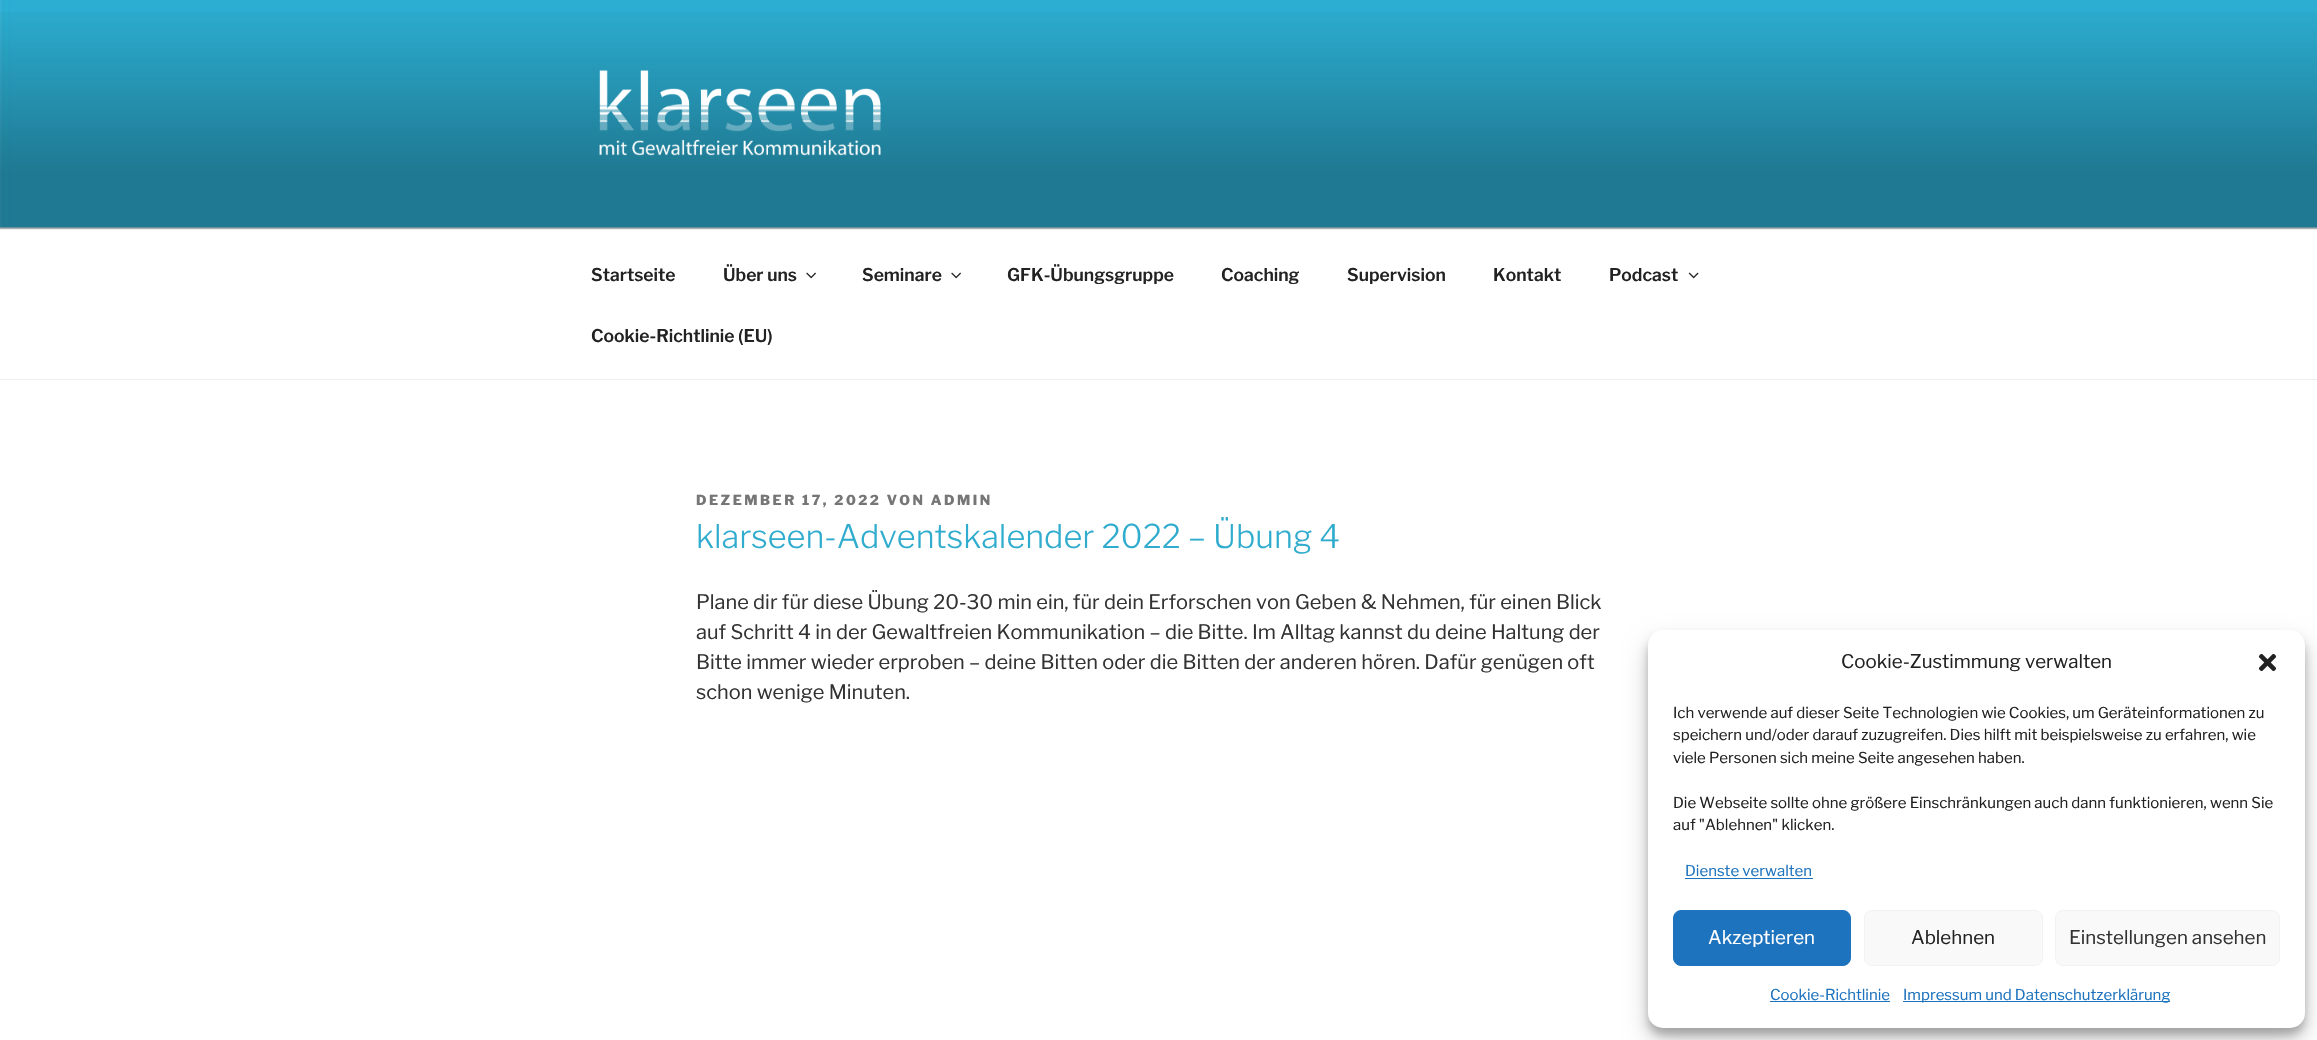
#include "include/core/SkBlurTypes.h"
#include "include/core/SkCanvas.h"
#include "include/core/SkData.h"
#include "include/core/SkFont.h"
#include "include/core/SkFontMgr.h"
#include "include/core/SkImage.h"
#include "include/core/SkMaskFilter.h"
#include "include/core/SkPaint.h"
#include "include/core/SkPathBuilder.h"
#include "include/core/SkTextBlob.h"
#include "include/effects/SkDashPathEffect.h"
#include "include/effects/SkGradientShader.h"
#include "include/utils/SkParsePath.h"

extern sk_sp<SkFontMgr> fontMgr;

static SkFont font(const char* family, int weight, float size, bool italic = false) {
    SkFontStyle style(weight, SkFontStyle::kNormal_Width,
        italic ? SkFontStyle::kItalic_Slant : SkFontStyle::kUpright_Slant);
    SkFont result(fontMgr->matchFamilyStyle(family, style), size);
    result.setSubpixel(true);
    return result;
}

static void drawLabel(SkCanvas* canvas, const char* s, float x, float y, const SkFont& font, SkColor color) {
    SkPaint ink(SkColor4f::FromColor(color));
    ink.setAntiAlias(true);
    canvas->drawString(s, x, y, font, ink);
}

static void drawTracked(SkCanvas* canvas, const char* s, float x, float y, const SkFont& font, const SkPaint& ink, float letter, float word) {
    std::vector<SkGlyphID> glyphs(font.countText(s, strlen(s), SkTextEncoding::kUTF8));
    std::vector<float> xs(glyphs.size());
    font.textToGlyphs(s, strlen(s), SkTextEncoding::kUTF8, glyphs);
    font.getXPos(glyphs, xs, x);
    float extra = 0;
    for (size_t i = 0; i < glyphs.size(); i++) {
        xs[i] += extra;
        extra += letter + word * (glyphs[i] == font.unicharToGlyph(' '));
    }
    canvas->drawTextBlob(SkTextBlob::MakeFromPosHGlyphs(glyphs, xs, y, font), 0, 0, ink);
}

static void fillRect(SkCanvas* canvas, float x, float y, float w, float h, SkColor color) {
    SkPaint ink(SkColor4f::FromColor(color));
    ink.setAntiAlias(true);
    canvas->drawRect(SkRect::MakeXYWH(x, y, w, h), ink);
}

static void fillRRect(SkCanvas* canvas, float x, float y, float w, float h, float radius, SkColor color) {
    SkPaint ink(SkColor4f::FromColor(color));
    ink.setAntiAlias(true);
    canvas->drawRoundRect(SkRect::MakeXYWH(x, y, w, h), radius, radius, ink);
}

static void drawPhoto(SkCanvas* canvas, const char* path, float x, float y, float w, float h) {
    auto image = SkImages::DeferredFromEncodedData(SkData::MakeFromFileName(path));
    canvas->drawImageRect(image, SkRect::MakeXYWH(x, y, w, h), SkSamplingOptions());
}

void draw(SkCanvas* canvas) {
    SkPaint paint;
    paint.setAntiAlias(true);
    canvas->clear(0xFFFFFFFF);
    fillRect(canvas, 0, 227, 2317, 2, 0xFFFAFAFA);
    drawPhoto(canvas, "assets/img1.png", 0, 0, 2317, 228);
    {
        const SkColor colors[] = {0x00000000, 0x4D000000, 0x4D000000};
        const float stops[] = {0, 0.75f, 1};
        const SkPoint ends[] = {{1159, 0}, {1159, 229}};
        paint.setShader(SkGradientShader::MakeLinear(ends, colors, stops, 3, SkTileMode::kClamp));
        paint.setAlpha(255);
    }
    canvas->drawRect(SkRect::MakeXYWH(0, 12, 2317, 217), paint);
    drawPhoto(canvas, "assets/img2.png", 599, 70, 282, 86);
    fillRect(canvas, 0, 229, 2317, 1, 0xFFEEEEEE);
    fillRect(canvas, 0, 379, 2317, 1, 0xFFEEEEEE);
    SkFont font1 = font("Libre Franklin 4", 100, 17.5f);
    drawLabel(canvas, "Startseite", 591, 281, font1, 0xFF222222);
    drawLabel(canvas, "Über uns", 723, 281, font1, 0xFF222222);
    drawPhoto(canvas, "assets/img3.png", 806, 272, 10, 7);
    drawLabel(canvas, "Seminare", 862, 281, font1, 0xFF222222);
    drawPhoto(canvas, "assets/img3.png", 951, 272, 10, 7);
    drawLabel(canvas, "GFK-Übungsgruppe", 1007, 281, font1, 0xFF222222);
    drawLabel(canvas, "Coaching", 1221, 281, font1, 0xFF222222);
    drawLabel(canvas, "Supervision", 1347, 281, font1, 0xFF222222);
    drawLabel(canvas, "Kontakt", 1493, 281, font1, 0xFF222222);
    drawLabel(canvas, "Podcast", 1609, 281, font1, 0xFF222222);
    drawPhoto(canvas, "assets/img4.png", 1688, 272, 11, 7);
    drawLabel(canvas, "Cookie-Richtlinie (EU)", 591, 342, font1, 0xFF222222);
    SkFont font2 = font("Libre Franklin", 100, 13.75f);
    paint.setShader(nullptr);
    paint.setColor(0xFF767676);
    drawTracked(canvas, "DEZEMBER 17, 2022 VON ADMIN", 696, 505, font2, paint, 2.5f, 0);
    SkFont font3 = font("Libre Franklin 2", 100, 32.5f);
    drawLabel(canvas, "klarseen-Adventskalender 2022 – Übung 4", 696, 548, font3, 0xFF30ACCE);
    SkFont font4 = font("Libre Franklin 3", 100, 20);
    drawLabel(canvas, "Plane dir für diese Übung 20-30 min ein, für dein Erforschen von Geben & Nehmen, für einen Blick", 696, 609, font4, 0xFF333333);
    drawLabel(canvas, "auf Schritt 4 in der Gewaltfreien Kommunikation – die Bitte. Im Alltag kannst du deine Haltung der", 696, 639, font4, 0xFF333333);
    drawLabel(canvas, "Bitte immer wieder erproben – deine Bitten oder die Bitten der anderen hören. Dafür genügen oft", 696, 669, font4, 0xFF333333);
    drawLabel(canvas, "schon wenige Minuten.", 696, 699, font4, 0xFF333333);
    paint.setColor(0x3B000000);
    paint.setMaskFilter(SkMaskFilter::MakeBlur(kNormal_SkBlurStyle, 4));
    canvas->drawRoundRect(SkRect::MakeXYWH(1648, 638, 657, 397), 15, 15, paint);
    paint.setMaskFilter(nullptr);
    paint.setColor(0x30000000);
    paint.setMaskFilter(SkMaskFilter::MakeBlur(kNormal_SkBlurStyle, 12.5f));
    canvas->drawRoundRect(SkRect::MakeXYWH(1648, 643, 657, 397), 15, 15, paint);
    paint.setMaskFilter(nullptr);
    fillRRect(canvas, 1648, 630, 657, 398, 15, 0xFFFFFFFF);
    SkFont font5 = font("Libre Franklin 3", 100, 18.75f);
    drawLabel(canvas, "Cookie-Zustimmung verwalten", 1841, 668, font5, 0xFF222222);
    drawPhoto(canvas, "assets/img5.png", 2258, 653, 19, 19);
    SkFont font6 = font("Libre Franklin 3", 100, 15);
    drawLabel(canvas, "Ich verwende auf dieser Seite Technologien wie Cookies, um Geräteinformationen zu", 1673, 718, font6, 0xFF222222);
    drawLabel(canvas, "speichern und/oder darauf zuzugreifen. Dies hilft mit beispielsweise zu erfahren, wie", 1673, 740, font6, 0xFF222222);
    drawLabel(canvas, "viele Personen sich meine Seite angesehen haben.", 1673, 763, font6, 0xFF222222);
    drawLabel(canvas, "Die Webseite sollte ohne größere Einschränkungen auch dann funktionieren, wenn Sie", 1673, 808, font6, 0xFF222222);
    drawLabel(canvas, "auf \"Ablehnen\" klicken.", 1673, 830, font6, 0xFF222222);
    drawLabel(canvas, "Dienste verwalten", 1685, 876, font6, 0xFF1E73BE);
    fillRect(canvas, 1685, 878, 128, 1, 0xFF1E73BE);
    paint.setColor(0xFF1E73BE);
    canvas->drawRoundRect(SkRect::MakeXYWH(1673.5f, 910.5f, 177, 55), 7.5f, 7.5f, paint);
    paint.setStroke(true);
    paint.setStrokeWidth(1);
    canvas->drawRoundRect(SkRect::MakeXYWH(1673.5f, 910.5f, 177, 55), 7.5f, 7.5f, paint);
    drawLabel(canvas, "Akzeptieren", 1708, 944, font5, 0xFFFFFFFF);
    paint.setStroke(false);
    paint.setColor(0xFFF9F9F9);
    canvas->drawRoundRect(SkRect::MakeXYWH(1864.5f, 910.5f, 178, 55), 7.5f, 7.5f, paint);
    paint.setStroke(true);
    paint.setColor(0xFFF2F2F2);
    canvas->drawRoundRect(SkRect::MakeXYWH(1864.5f, 910.5f, 178, 55), 7.5f, 7.5f, paint);
    drawLabel(canvas, "Ablehnen", 1911, 944, font5, 0xFF222222);
    paint.setStroke(false);
    paint.setColor(0xFFF9F9F9);
    canvas->drawRoundRect(SkRect::MakeXYWH(2055.5f, 910.5f, 224, 55), 7.5f, 7.5f, paint);
    paint.setStroke(true);
    paint.setColor(0xFFF2F2F2);
    canvas->drawRoundRect(SkRect::MakeXYWH(2055.5f, 910.5f, 224, 55), 7.5f, 7.5f, paint);
    drawLabel(canvas, "Einstellungen ansehen", 2069, 944, font5, 0xFF333333);
    drawLabel(canvas, "Cookie-Richtlinie", 1770, 1000, font6, 0xFF1E73BE);
    fillRect(canvas, 1770, 1001, 120, 1, 0xFF1E73BE);
    fillRect(canvas, 1903, 1001, 267, 1, 0xFF1E73BE);
    drawLabel(canvas, "Impressum und Datenschutzerklärung", 1903, 1000, font6, 0xFF1E73BE);
}
